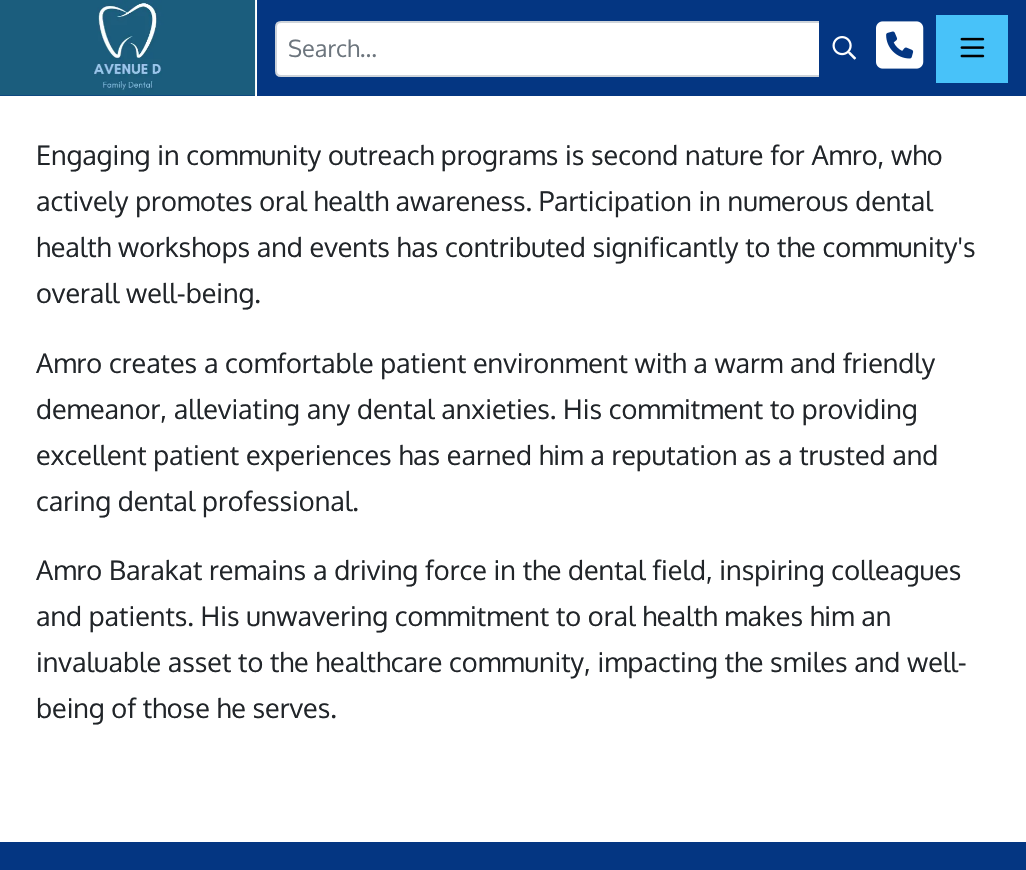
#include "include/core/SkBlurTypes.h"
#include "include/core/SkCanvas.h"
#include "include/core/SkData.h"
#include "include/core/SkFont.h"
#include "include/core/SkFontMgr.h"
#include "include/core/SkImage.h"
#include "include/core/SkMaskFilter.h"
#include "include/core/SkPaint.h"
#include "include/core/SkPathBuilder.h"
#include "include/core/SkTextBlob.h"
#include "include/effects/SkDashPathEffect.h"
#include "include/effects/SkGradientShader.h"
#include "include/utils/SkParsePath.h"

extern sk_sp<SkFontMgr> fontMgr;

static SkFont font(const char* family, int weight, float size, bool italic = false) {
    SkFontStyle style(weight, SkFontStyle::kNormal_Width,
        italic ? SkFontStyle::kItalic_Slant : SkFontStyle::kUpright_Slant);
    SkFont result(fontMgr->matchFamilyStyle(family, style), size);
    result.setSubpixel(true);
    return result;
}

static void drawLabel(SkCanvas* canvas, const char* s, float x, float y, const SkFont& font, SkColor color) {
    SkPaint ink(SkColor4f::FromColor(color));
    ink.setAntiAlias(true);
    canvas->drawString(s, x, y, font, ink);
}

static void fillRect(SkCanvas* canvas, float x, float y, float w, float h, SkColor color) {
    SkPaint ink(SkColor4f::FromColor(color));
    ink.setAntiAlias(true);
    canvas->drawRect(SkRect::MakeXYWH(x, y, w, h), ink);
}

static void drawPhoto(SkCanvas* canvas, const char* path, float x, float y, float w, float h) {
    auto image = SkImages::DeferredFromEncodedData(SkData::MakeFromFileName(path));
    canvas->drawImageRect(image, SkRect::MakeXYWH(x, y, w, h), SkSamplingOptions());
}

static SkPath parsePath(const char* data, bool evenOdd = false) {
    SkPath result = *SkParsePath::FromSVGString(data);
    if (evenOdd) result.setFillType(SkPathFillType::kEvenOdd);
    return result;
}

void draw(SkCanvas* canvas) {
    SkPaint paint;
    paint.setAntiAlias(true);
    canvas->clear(0xFFFFFFFF);
    fillRect(canvas, 0, 0, 1026, 96, 0xFF043682);
    fillRect(canvas, 255, 0, 2, 98, 0xFFFFFFFF);
    drawPhoto(canvas, "assets/img1.png", 0, 0, 256, 96);
    paint.setColor(0xFFFFFFFF);
    canvas->drawPath(parsePath("M281 22H820V76H281C278 76 276 74 276 71V27C276 24 278 22 281 22Z"), paint);
    paint.setStroke(true);
    paint.setStrokeWidth(2);
    paint.setColor(0xFFCED4DA);
    canvas->drawPath(parsePath("M281 22H820V76H281C278 76 276 74 276 71V27C276 24 278 22 281 22Z"), paint);
    SkFont font1 = font("Oxygen", 400, 23.5f);
    drawLabel(canvas, "Search...", 288, 57, font1, 0xFF6C757D);
    fillRect(canvas, 819, 21, 2, 56, 0xFF043682);
    drawPhoto(canvas, "assets/img2.png", 832, 36, 25, 24);
    drawPhoto(canvas, "assets/img3.png", 876, 21, 48, 48);
    fillRect(canvas, 936, 15, 72, 68, 0xFF48C2F9);
    drawPhoto(canvas, "assets/img4.png", 960, 37, 25, 21);
    SkFont font2 = font("Oxygen", 400, 27);
    drawLabel(canvas, "Engaging in community outreach programs is second nature for Amro, who", 36, 165, font2, 0xFF212529);
    drawLabel(canvas, "actively promotes oral health awareness. Participation in numerous dental", 36, 211, font2, 0xFF212529);
    drawLabel(canvas, "health workshops and events has contributed significantly to the community's", 36, 257, font2, 0xFF212529);
    drawLabel(canvas, "overall well-being.", 36, 303, font2, 0xFF212529);
    drawLabel(canvas, "Amro creates a comfortable patient environment with a warm and friendly", 36, 373, font2, 0xFF212529);
    drawLabel(canvas, "demeanor, alleviating any dental anxieties. His commitment to providing", 36, 419, font2, 0xFF212529);
    drawLabel(canvas, "excellent patient experiences has earned him a reputation as a trusted and", 36, 465, font2, 0xFF212529);
    drawLabel(canvas, "caring dental professional.", 36, 511, font2, 0xFF212529);
    drawLabel(canvas, "Amro Barakat remains a driving force in the dental field, inspiring colleagues", 36, 580, font2, 0xFF212529);
    drawLabel(canvas, "and patients. His unwavering commitment to oral health makes him an", 36, 626, font2, 0xFF212529);
    drawLabel(canvas, "invaluable asset to the healthcare community, impacting the smiles and well-", 36, 672, font2, 0xFF212529);
    drawLabel(canvas, "being of those he serves.", 36, 718, font2, 0xFF212529);
    fillRect(canvas, 0, 842, 1026, 28, 0xFF043682);
}
